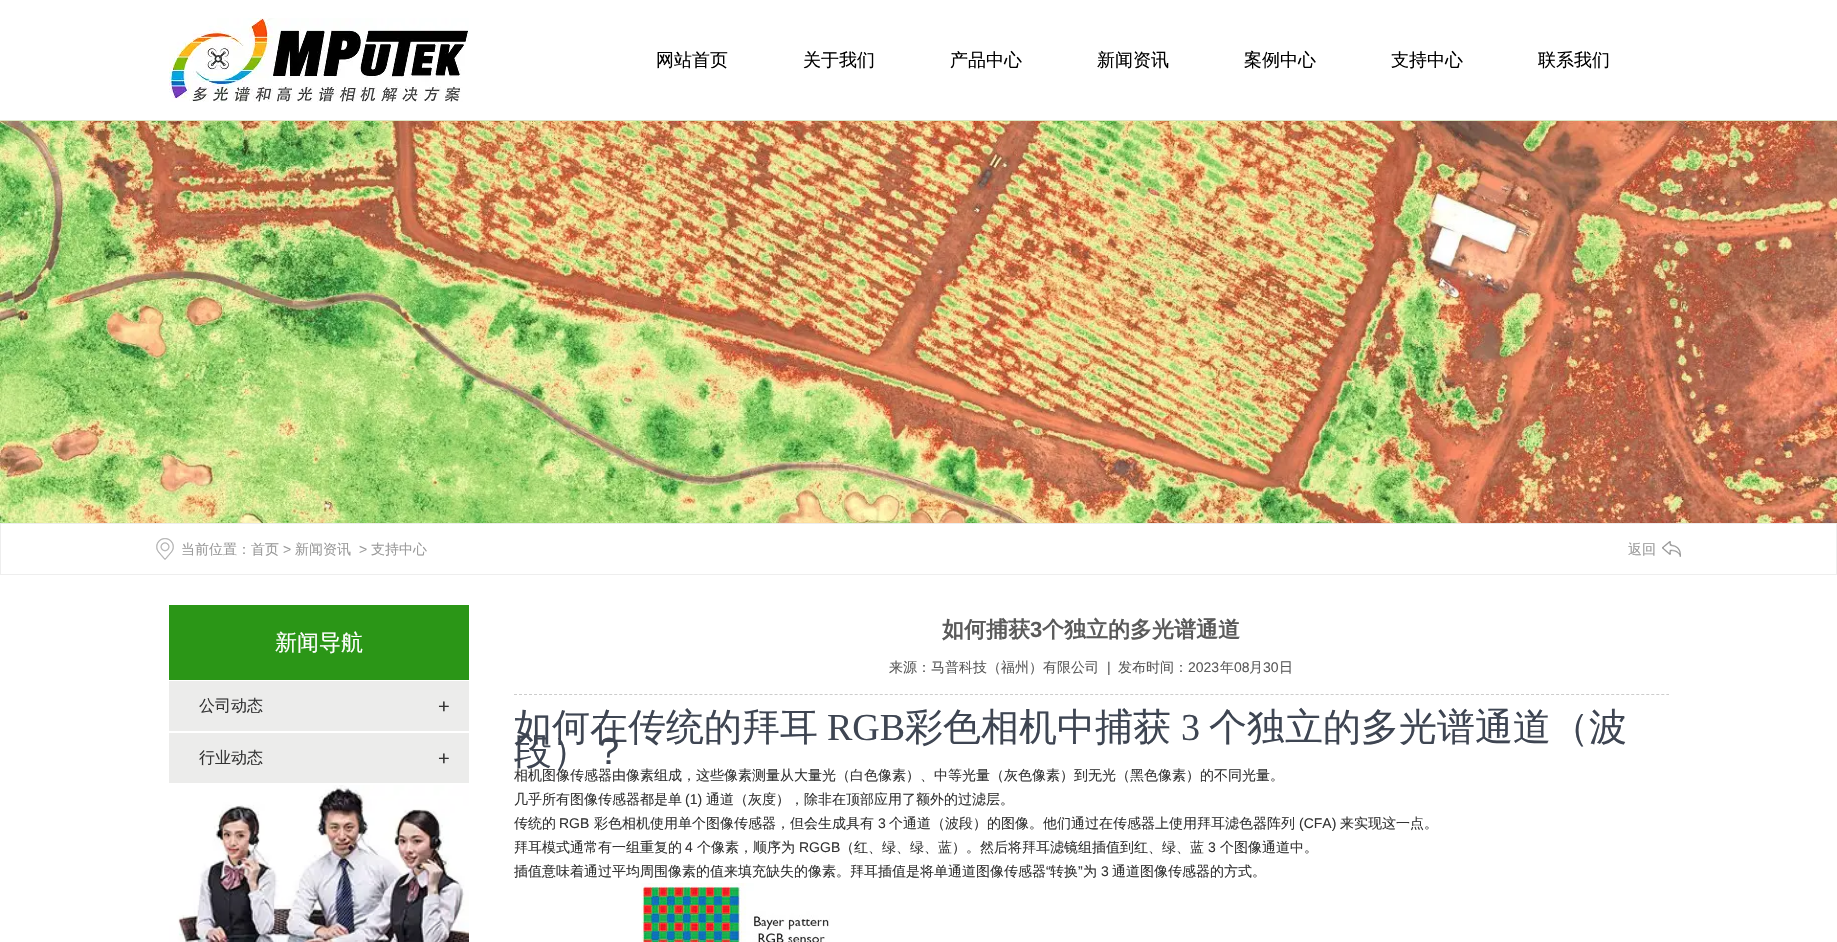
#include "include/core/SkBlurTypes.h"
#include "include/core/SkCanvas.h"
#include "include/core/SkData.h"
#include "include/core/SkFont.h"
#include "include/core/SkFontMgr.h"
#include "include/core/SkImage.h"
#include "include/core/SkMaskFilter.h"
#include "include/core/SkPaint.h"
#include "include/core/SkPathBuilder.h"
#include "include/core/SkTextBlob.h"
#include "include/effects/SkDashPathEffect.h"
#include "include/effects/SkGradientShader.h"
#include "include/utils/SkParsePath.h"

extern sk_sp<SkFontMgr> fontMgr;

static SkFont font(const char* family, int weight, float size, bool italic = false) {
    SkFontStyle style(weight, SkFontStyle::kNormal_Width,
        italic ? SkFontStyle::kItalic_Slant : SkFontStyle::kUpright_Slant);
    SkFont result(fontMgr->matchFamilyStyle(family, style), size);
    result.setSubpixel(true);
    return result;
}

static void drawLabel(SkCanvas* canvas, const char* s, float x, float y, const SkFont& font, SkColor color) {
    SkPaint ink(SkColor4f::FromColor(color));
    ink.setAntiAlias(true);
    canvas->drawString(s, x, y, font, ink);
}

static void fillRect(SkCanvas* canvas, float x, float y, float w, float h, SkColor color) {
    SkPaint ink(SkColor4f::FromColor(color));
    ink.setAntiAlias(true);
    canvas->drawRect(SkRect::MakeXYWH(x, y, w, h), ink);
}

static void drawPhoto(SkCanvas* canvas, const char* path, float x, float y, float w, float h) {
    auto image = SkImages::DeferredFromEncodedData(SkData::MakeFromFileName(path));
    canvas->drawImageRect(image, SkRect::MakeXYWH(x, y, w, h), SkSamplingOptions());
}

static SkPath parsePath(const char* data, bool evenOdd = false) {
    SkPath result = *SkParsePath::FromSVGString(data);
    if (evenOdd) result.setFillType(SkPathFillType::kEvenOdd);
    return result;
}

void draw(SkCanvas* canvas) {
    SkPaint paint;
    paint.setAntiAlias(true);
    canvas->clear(0xFFFFFFFF);
    fillRect(canvas, 0, 120, 1837, 1, 0xFFDDE6C5);
    drawPhoto(canvas, "assets/img1.png", 169, 18, 300, 84);
    SkFont font1 = font("WenQuanYi Zen Hei", 500, 18);
    drawLabel(canvas, "网站首页", 656, 66, font1, 0xFF000000);
    drawLabel(canvas, "关于我们", 803, 66, font1, 0xFF000000);
    drawLabel(canvas, "产品中心", 950, 66, font1, 0xFF000000);
    drawLabel(canvas, "新闻资讯", 1097, 66, font1, 0xFF000000);
    drawLabel(canvas, "案例中心", 1244, 66, font1, 0xFF000000);
    drawLabel(canvas, "支持中心", 1391, 66, font1, 0xFF000000);
    drawLabel(canvas, "联系我们", 1538, 66, font1, 0xFF000000);
    drawPhoto(canvas, "assets/img2.png", 0, 121, 1837, 402);
    paint.setStroke(true);
    paint.setStrokeWidth(1);
    paint.setColor(0xFFEEEEEE);
    canvas->drawRect(SkRect::MakeXYWH(0.5f, 523.5f, 1836, 51), paint);
    drawPhoto(canvas, "assets/img3.png", 156, 538, 18, 22);
    SkFont font2 = font("WenQuanYi Zen Hei", 500, 14);
    drawLabel(canvas, "当前位置：首页", 181, 554, font2, 0xFF999999);
    SkFont font3 = font("Liberation Sans", 400, 14);
    drawLabel(canvas, ">", 283, 554, font3, 0xFF999999);
    drawLabel(canvas, "新闻资讯", 295, 554, font2, 0xFF999999);
    drawLabel(canvas, ">", 359, 554, font3, 0xFF999999);
    drawLabel(canvas, "支持中心", 371, 554, font2, 0xFF999999);
    drawPhoto(canvas, "assets/img4.png", 1662, 541, 19, 16);
    drawLabel(canvas, "返回", 1628, 554, font2, 0xFF999999);
    fillRect(canvas, 169, 605, 300, 75, 0xFF2B9617);
    SkFont font4 = font("WenQuanYi Zen Hei", 500, 22);
    drawLabel(canvas, "新闻导航", 275, 650, font4, 0xFFFFFFFF);
    fillRect(canvas, 169, 681, 300, 50, 0xFFECECEB);
    SkFont font5 = font("WenQuanYi Zen Hei", 500, 16);
    drawLabel(canvas, "公司动态", 199, 711, font5, 0xFF333333);
    SkFont font6 = font("Liberation Sans", 400, 20);
    drawLabel(canvas, "+", 438, 713, font6, 0xFF333333);
    fillRect(canvas, 169, 733, 300, 50, 0xFFECECEB);
    drawLabel(canvas, "行业动态", 199, 763, font5, 0xFF333333);
    drawLabel(canvas, "+", 438, 765, font6, 0xFF333333);
    drawPhoto(canvas, "assets/img5.png", 169, 785, 300, 157);
    paint.setColor(0xFFCCCCCC);
    paint.setPathEffect(SkDashPathEffect::Make({{3, 2.01f}}, 0));
    canvas->drawPath(parsePath("M514 694.5H1669"), paint);
    paint.setPathEffect(nullptr);
    SkFont font7 = font("WenQuanYi Zen Hei", 700, 22);
    drawLabel(canvas, "如何捕获", 942, 637, font7, 0xFF5A5A5A);
    SkFont font8 = font("Liberation Sans", 700, 22);
    drawLabel(canvas, "3", 1030, 637, font8, 0xFF5A5A5A);
    drawLabel(canvas, "个独立的多光谱通道", 1042, 637, font7, 0xFF5A5A5A);
    drawLabel(canvas, "来源：马普科技（福州）有限公司", 889, 672, font2, 0xFF5A5A5A);
    drawLabel(canvas, "|", 1107, 672, font3, 0xFF5A5A5A);
    drawLabel(canvas, "发布时间：", 1118, 672, font2, 0xFF5A5A5A);
    drawLabel(canvas, "2023", 1188, 672, font3, 0xFF5A5A5A);
    drawLabel(canvas, "年", 1220, 672, font2, 0xFF5A5A5A);
    drawLabel(canvas, "08", 1234, 672, font3, 0xFF5A5A5A);
    drawLabel(canvas, "月", 1249, 672, font2, 0xFF5A5A5A);
    drawLabel(canvas, "30", 1263, 672, font3, 0xFF5A5A5A);
    drawLabel(canvas, "日", 1279, 672, font2, 0xFF5A5A5A);
    SkFont font9 = font("WenQuanYi Zen Hei", 500, 38);
    drawLabel(canvas, "如何在传统的拜耳", 514, 740, font9, 0xFF3E4552);
    SkFont font10 = font("Liberation Serif", 400, 38);
    drawLabel(canvas, "RGB", 827, 740, font10, 0xFF3E4552);
    drawLabel(canvas, "彩色相机中捕获", 905, 740, font9, 0xFF3E4552);
    drawLabel(canvas, "3", 1181, 740, font10, 0xFF3E4552);
    drawLabel(canvas, "个独立的多光谱通道（波", 1209, 740, font9, 0xFF3E4552);
    drawLabel(canvas, "段）？", 514, 764, font9, 0xFF3E4552);
    drawLabel(canvas, "相机图像传感器由像素组成，这些像素测量从大量光（白色像素）、中等光量（灰色像素）到无光（黑色像素）的不同光量。", 514, 780, font2, 0xFF333333);
    drawLabel(canvas, "几乎所有图像传感器都是单", 514, 804, font2, 0xFF333333);
    drawLabel(canvas, "(1)", 685, 804, font3, 0xFF333333);
    drawLabel(canvas, "通道（灰度），除非在顶部应用了额外的过滤层。", 706, 804, font2, 0xFF333333);
    drawLabel(canvas, "传统的", 514, 828, font2, 0xFF333333);
    drawLabel(canvas, "RGB", 559, 828, font3, 0xFF333333);
    drawLabel(canvas, "彩色相机使用单个图像传感器，但会生成具有", 594, 828, font2, 0xFF333333);
    drawLabel(canvas, "3", 878, 828, font3, 0xFF333333);
    drawLabel(canvas, "个通道（波段）的图像。他们通过在传感器上使用拜耳滤色器阵列", 889, 828, font2, 0xFF333333);
    drawLabel(canvas, "(CFA)", 1299, 828, font3, 0xFF333333);
    drawLabel(canvas, "来实现这一点。", 1340, 828, font2, 0xFF333333);
    drawLabel(canvas, "拜耳模式通常有一组重复的", 514, 852, font2, 0xFF333333);
    drawLabel(canvas, "4", 685, 852, font3, 0xFF333333);
    drawLabel(canvas, "个像素，顺序为", 697, 852, font2, 0xFF333333);
    drawLabel(canvas, "RGGB", 799, 852, font3, 0xFF333333);
    drawLabel(canvas, "（红、绿、绿、蓝）。然后将拜耳滤镜组插值到红、绿、蓝", 840, 852, font2, 0xFF333333);
    drawLabel(canvas, "3", 1208, 852, font3, 0xFF333333);
    drawLabel(canvas, "个图像通道中。", 1220, 852, font2, 0xFF333333);
    drawLabel(canvas, "插值意味着通过平均周围像素的值来填充缺失的像素。拜耳插值是将单通道图像传感器", 514, 876, font2, 0xFF333333);
    drawLabel(canvas, "“", 1046, 876, font3, 0xFF333333);
    drawLabel(canvas, "转换", 1050, 876, font2, 0xFF333333);
    drawLabel(canvas, "”", 1078, 876, font3, 0xFF333333);
    drawLabel(canvas, "为", 1083, 876, font2, 0xFF333333);
    drawLabel(canvas, "3", 1101, 876, font3, 0xFF333333);
    drawLabel(canvas, "通道图像传感器的方式。", 1112, 876, font2, 0xFF333333);
    drawPhoto(canvas, "assets/img6.png", 641, 883, 189, 59);
}
